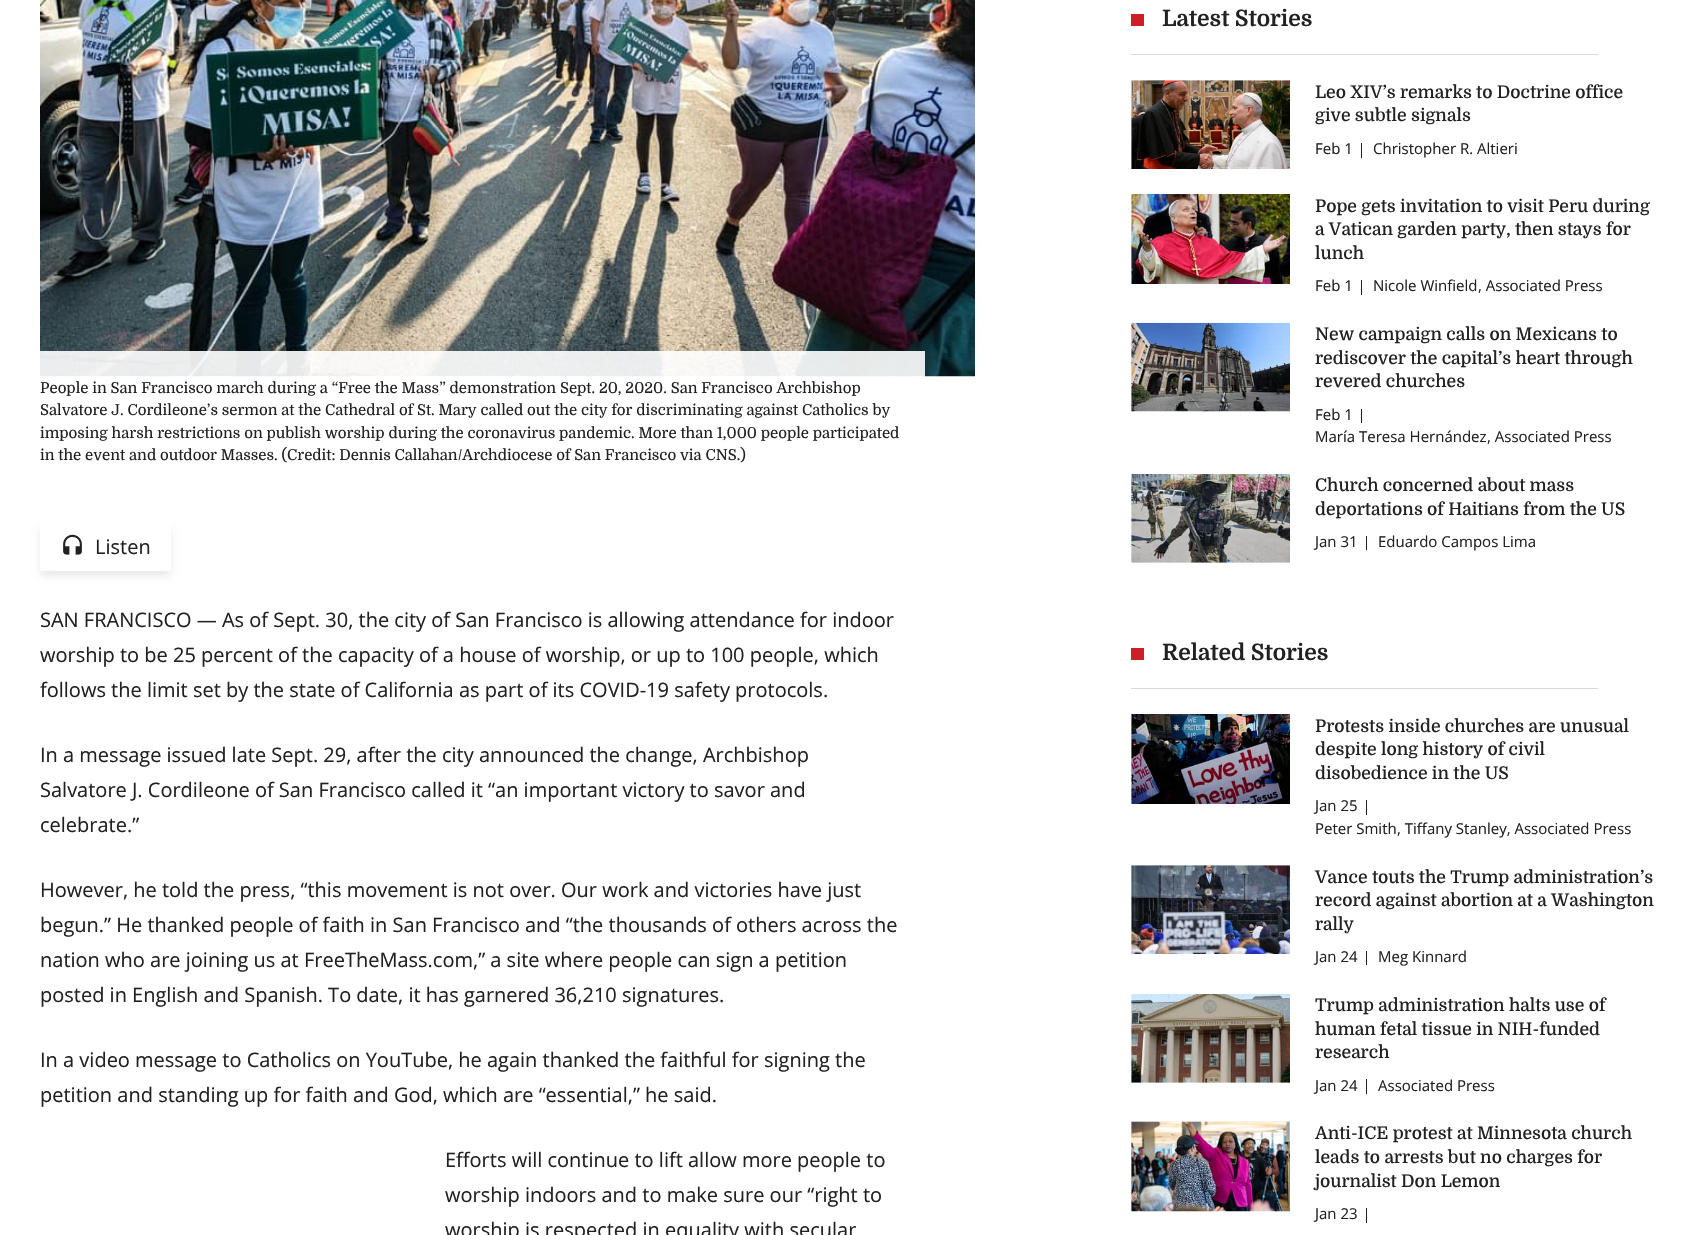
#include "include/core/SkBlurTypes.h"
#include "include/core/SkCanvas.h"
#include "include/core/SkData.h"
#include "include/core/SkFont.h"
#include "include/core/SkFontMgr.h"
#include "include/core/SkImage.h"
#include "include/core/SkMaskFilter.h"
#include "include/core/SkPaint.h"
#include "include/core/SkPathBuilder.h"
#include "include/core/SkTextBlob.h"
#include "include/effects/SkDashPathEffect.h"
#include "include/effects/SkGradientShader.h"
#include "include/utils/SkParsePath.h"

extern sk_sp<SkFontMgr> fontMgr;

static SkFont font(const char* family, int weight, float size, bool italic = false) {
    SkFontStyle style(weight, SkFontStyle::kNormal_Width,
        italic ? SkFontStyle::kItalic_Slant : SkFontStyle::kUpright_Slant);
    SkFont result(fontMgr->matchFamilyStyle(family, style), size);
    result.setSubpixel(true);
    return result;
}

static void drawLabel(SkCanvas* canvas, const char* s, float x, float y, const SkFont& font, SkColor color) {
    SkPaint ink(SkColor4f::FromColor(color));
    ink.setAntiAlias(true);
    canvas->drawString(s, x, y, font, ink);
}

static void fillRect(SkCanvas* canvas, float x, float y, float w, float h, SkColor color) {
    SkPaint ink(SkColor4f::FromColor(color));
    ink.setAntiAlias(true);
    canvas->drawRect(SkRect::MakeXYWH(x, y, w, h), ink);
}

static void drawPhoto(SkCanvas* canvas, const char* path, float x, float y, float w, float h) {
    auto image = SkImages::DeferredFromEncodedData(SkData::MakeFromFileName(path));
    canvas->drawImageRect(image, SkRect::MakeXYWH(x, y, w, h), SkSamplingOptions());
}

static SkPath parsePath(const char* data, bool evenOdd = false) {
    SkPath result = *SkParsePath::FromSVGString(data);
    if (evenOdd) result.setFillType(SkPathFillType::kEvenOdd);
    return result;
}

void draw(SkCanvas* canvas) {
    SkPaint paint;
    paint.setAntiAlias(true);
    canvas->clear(0xFFFFFFFF);
    drawPhoto(canvas, "assets/img1.png", 40, 0, 935, 377);
    fillRect(canvas, 40, 351, 885, 26, 0xE6FFFFFF);
    SkFont font1 = font("Domine", 400, 15);
    drawLabel(canvas, "People in San Francisco march during a “Free the Mass” demonstration Sept. 20, 2020. San Francisco Archbishop", 40, 393, font1, 0xFF212121);
    drawLabel(canvas, "Salvatore J. Cordileone’s sermon at the Cathedral of St. Mary called out the city for discriminating against Catholics by", 40, 415, font1, 0xFF212121);
    drawLabel(canvas, "imposing harsh restrictions on publish worship during the coronavirus pandemic. More than 1,000 people participated", 40, 438, font1, 0xFF212121);
    drawLabel(canvas, "in the event and outdoor Masses. (Credit: Dennis Callahan/Archdiocese of San Francisco via CNS.)", 40, 460, font1, 0xFF212121);
    canvas->save();
    canvas->clipPath(parsePath("M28 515H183V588H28ZM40 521H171V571H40Z", true), true);
    paint.setColor(0x1A000000);
    paint.setMaskFilter(SkMaskFilter::MakeBlur(kNormal_SkBlurStyle, 4));
    canvas->drawRect(SkRect::MakeXYWH(41, 528, 129, 47), paint);
    paint.setMaskFilter(nullptr);
    canvas->restore();
    drawPhoto(canvas, "assets/img2.png", 63, 534, 19, 21);
    SkFont font2 = font("Open Sans", 400, 20);
    drawLabel(canvas, "Listen", 95, 554, font2, 0xFF212121);
    drawLabel(canvas, "SAN FRANCISCO — As of Sept. 30, the city of San Francisco is allowing attendance for indoor", 40, 627, font2, 0xFF212121);
    drawLabel(canvas, "worship to be 25 percent of the capacity of a house of worship, or up to 100 people, which", 40, 662, font2, 0xFF212121);
    drawLabel(canvas, "follows the limit set by the state of California as part of its COVID-19 safety protocols.", 40, 697, font2, 0xFF212121);
    drawLabel(canvas, "In a message issued late Sept. 29, after the city announced the change, Archbishop", 40, 762, font2, 0xFF212121);
    drawLabel(canvas, "Salvatore J. Cordileone of San Francisco called it “an important victory to savor and", 40, 797, font2, 0xFF212121);
    drawLabel(canvas, "celebrate.”", 40, 832, font2, 0xFF212121);
    drawLabel(canvas, "However, he told the press, “this movement is not over. Our work and victories have just", 40, 897, font2, 0xFF212121);
    drawLabel(canvas, "begun.” He thanked people of faith in San Francisco and “the thousands of others across the", 40, 932, font2, 0xFF212121);
    drawLabel(canvas, "nation who are joining us at FreeTheMass.com,” a site where people can sign a petition", 40, 967, font2, 0xFF212121);
    drawLabel(canvas, "posted in English and Spanish. To date, it has garnered 36,210 signatures.", 40, 1002, font2, 0xFF212121);
    drawLabel(canvas, "In a video message to Catholics on YouTube, he again thanked the faithful for signing the", 40, 1067, font2, 0xFF212121);
    drawLabel(canvas, "petition and standing up for faith and God, which are “essential,” he said.", 40, 1102, font2, 0xFF212121);
    drawLabel(canvas, "Efforts will continue to lift allow more people to", 445, 1167, font2, 0xFF212121);
    drawLabel(canvas, "worship indoors and to make sure our “right to", 445, 1202, font2, 0xFF212121);
    drawLabel(canvas, "worship is respected in equality with secular", 445, 1237, font2, 0xFF212121);
    fillRect(canvas, 1131, 54, 467, 1, 0xFFD9D9D9);
    fillRect(canvas, 1131, 14, 13, 12, 0xFFCC2027);
    SkFont font3 = font("Domine", 700, 22.5f);
    drawLabel(canvas, "Latest Stories", 1162, 26, font3, 0xFF212121);
    fillRect(canvas, 1131, 80, 159, 89, 0xFFF2F3F3);
    drawPhoto(canvas, "assets/img3.png", 1131, 80, 159, 89);
    SkFont font4 = font("Domine", 500, 17.5f);
    drawLabel(canvas, "Leo XIV’s remarks to Doctrine office", 1315, 98, font4, 0xFF212121);
    drawLabel(canvas, "give subtle signals", 1315, 121, font4, 0xFF212121);
    SkFont font5 = font("Open Sans", 400, 15);
    drawLabel(canvas, "Feb 1", 1315, 154, font5, 0xFF212121);
    fillRect(canvas, 1361, 143, 1, 15, 0xFF212121);
    drawLabel(canvas, "Christopher R. Altieri", 1373, 154, font5, 0xFF212121);
    fillRect(canvas, 1131, 194, 1, 90, 0xFFF2F3F3);
    drawPhoto(canvas, "assets/img4.png", 1131, 194, 159, 90);
    drawLabel(canvas, "Pope gets invitation to visit Peru during", 1315, 212, font4, 0xFF212121);
    drawLabel(canvas, "a Vatican garden party, then stays for", 1315, 235, font4, 0xFF212121);
    drawLabel(canvas, "lunch", 1315, 259, font4, 0xFF212121);
    drawLabel(canvas, "Feb 1", 1315, 291, font5, 0xFF212121);
    fillRect(canvas, 1361, 280, 1, 15, 0xFF212121);
    drawLabel(canvas, "Nicole Winfield", 1373, 291, font5, 0xFF212121);
    drawLabel(canvas, ", Associated Press", 1478, 291, font5, 0xFF212121);
    fillRect(canvas, 1131, 323, 1, 88, 0xFFF2F3F3);
    drawPhoto(canvas, "assets/img5.png", 1131, 322, 159, 90);
    drawLabel(canvas, "New campaign calls on Mexicans to", 1315, 340, font4, 0xFF212121);
    drawLabel(canvas, "rediscover the capital’s heart through", 1315, 364, font4, 0xFF212121);
    drawLabel(canvas, "revered churches", 1315, 387, font4, 0xFF212121);
    drawLabel(canvas, "Feb 1", 1315, 420, font5, 0xFF212121);
    fillRect(canvas, 1361, 409, 1, 14, 0xFF212121);
    drawLabel(canvas, "María Teresa Hernández", 1315, 442, font5, 0xFF212121);
    drawLabel(canvas, ", Associated Press", 1487, 442, font5, 0xFF212121);
    fillRect(canvas, 1131, 474, 159, 89, 0xFFF2F3F3);
    drawPhoto(canvas, "assets/img6.png", 1131, 474, 159, 89);
    drawLabel(canvas, "Church concerned about mass", 1315, 491, font4, 0xFF212121);
    drawLabel(canvas, "deportations of Haitians from the US", 1315, 515, font4, 0xFF212121);
    drawLabel(canvas, "Jan 31", 1315, 547, font5, 0xFF212121);
    fillRect(canvas, 1366, 536, 1, 14, 0xFF212121);
    drawLabel(canvas, "Eduardo Campos Lima", 1378, 547, font5, 0xFF212121);
    fillRect(canvas, 1131, 688, 467, 1, 0xFFD9D9D9);
    fillRect(canvas, 1131, 648, 13, 12, 0xFFCC2027);
    drawLabel(canvas, "Related Stories", 1162, 660, font3, 0xFF212121);
    fillRect(canvas, 1131, 714, 1, 90, 0xFFF2F3F3);
    drawPhoto(canvas, "assets/img7.png", 1131, 714, 159, 90);
    drawLabel(canvas, "Protests inside churches are unusual", 1315, 732, font4, 0xFF212121);
    drawLabel(canvas, "despite long history of civil", 1315, 755, font4, 0xFF212121);
    drawLabel(canvas, "disobedience in the US", 1315, 779, font4, 0xFF212121);
    drawLabel(canvas, "Jan 25", 1315, 811, font5, 0xFF212121);
    fillRect(canvas, 1366, 800, 1, 15, 0xFF212121);
    drawLabel(canvas, "Peter Smith", 1315, 834, font5, 0xFF212121);
    drawLabel(canvas, ", Tiffany Stanley, Associated Press", 1397, 834, font5, 0xFF212121);
    fillRect(canvas, 1131, 865, 159, 89, 0xFFF2F3F3);
    drawPhoto(canvas, "assets/img8.png", 1131, 865, 159, 89);
    drawLabel(canvas, "Vance touts the Trump administration’s", 1315, 883, font4, 0xFF212121);
    drawLabel(canvas, "record against abortion at a Washington", 1315, 906, font4, 0xFF212121);
    drawLabel(canvas, "rally", 1315, 930, font4, 0xFF212121);
    drawLabel(canvas, "Jan 24", 1315, 962, font5, 0xFF212121);
    fillRect(canvas, 1366, 951, 1, 14, 0xFF212121);
    drawLabel(canvas, "Meg Kinnard", 1378, 962, font5, 0xFF212121);
    fillRect(canvas, 1131, 994, 159, 89, 0xFFF2F3F3);
    drawPhoto(canvas, "assets/img9.png", 1131, 994, 159, 89);
    drawLabel(canvas, "Trump administration halts use of", 1315, 1011, font4, 0xFF212121);
    drawLabel(canvas, "human fetal tissue in NIH-funded", 1315, 1035, font4, 0xFF212121);
    drawLabel(canvas, "research", 1315, 1058, font4, 0xFF212121);
    drawLabel(canvas, "Jan 24", 1315, 1091, font5, 0xFF212121);
    fillRect(canvas, 1366, 1079, 1, 15, 0xFF212121);
    drawLabel(canvas, "Associated Press", 1378, 1091, font5, 0xFF212121);
    fillRect(canvas, 1131, 1121, 159, 90, 0xFFF2F3F3);
    drawPhoto(canvas, "assets/img10.png", 1131, 1121, 159, 91);
    drawLabel(canvas, "Anti-ICE protest at Minnesota church", 1315, 1139, font4, 0xFF212121);
    drawLabel(canvas, "leads to arrests but no charges for", 1315, 1163, font4, 0xFF212121);
    drawLabel(canvas, "journalist Don Lemon", 1315, 1187, font4, 0xFF212121);
    drawLabel(canvas, "Jan 23", 1315, 1219, font5, 0xFF212121);
    fillRect(canvas, 1366, 1208, 1, 15, 0xFF212121);
}
